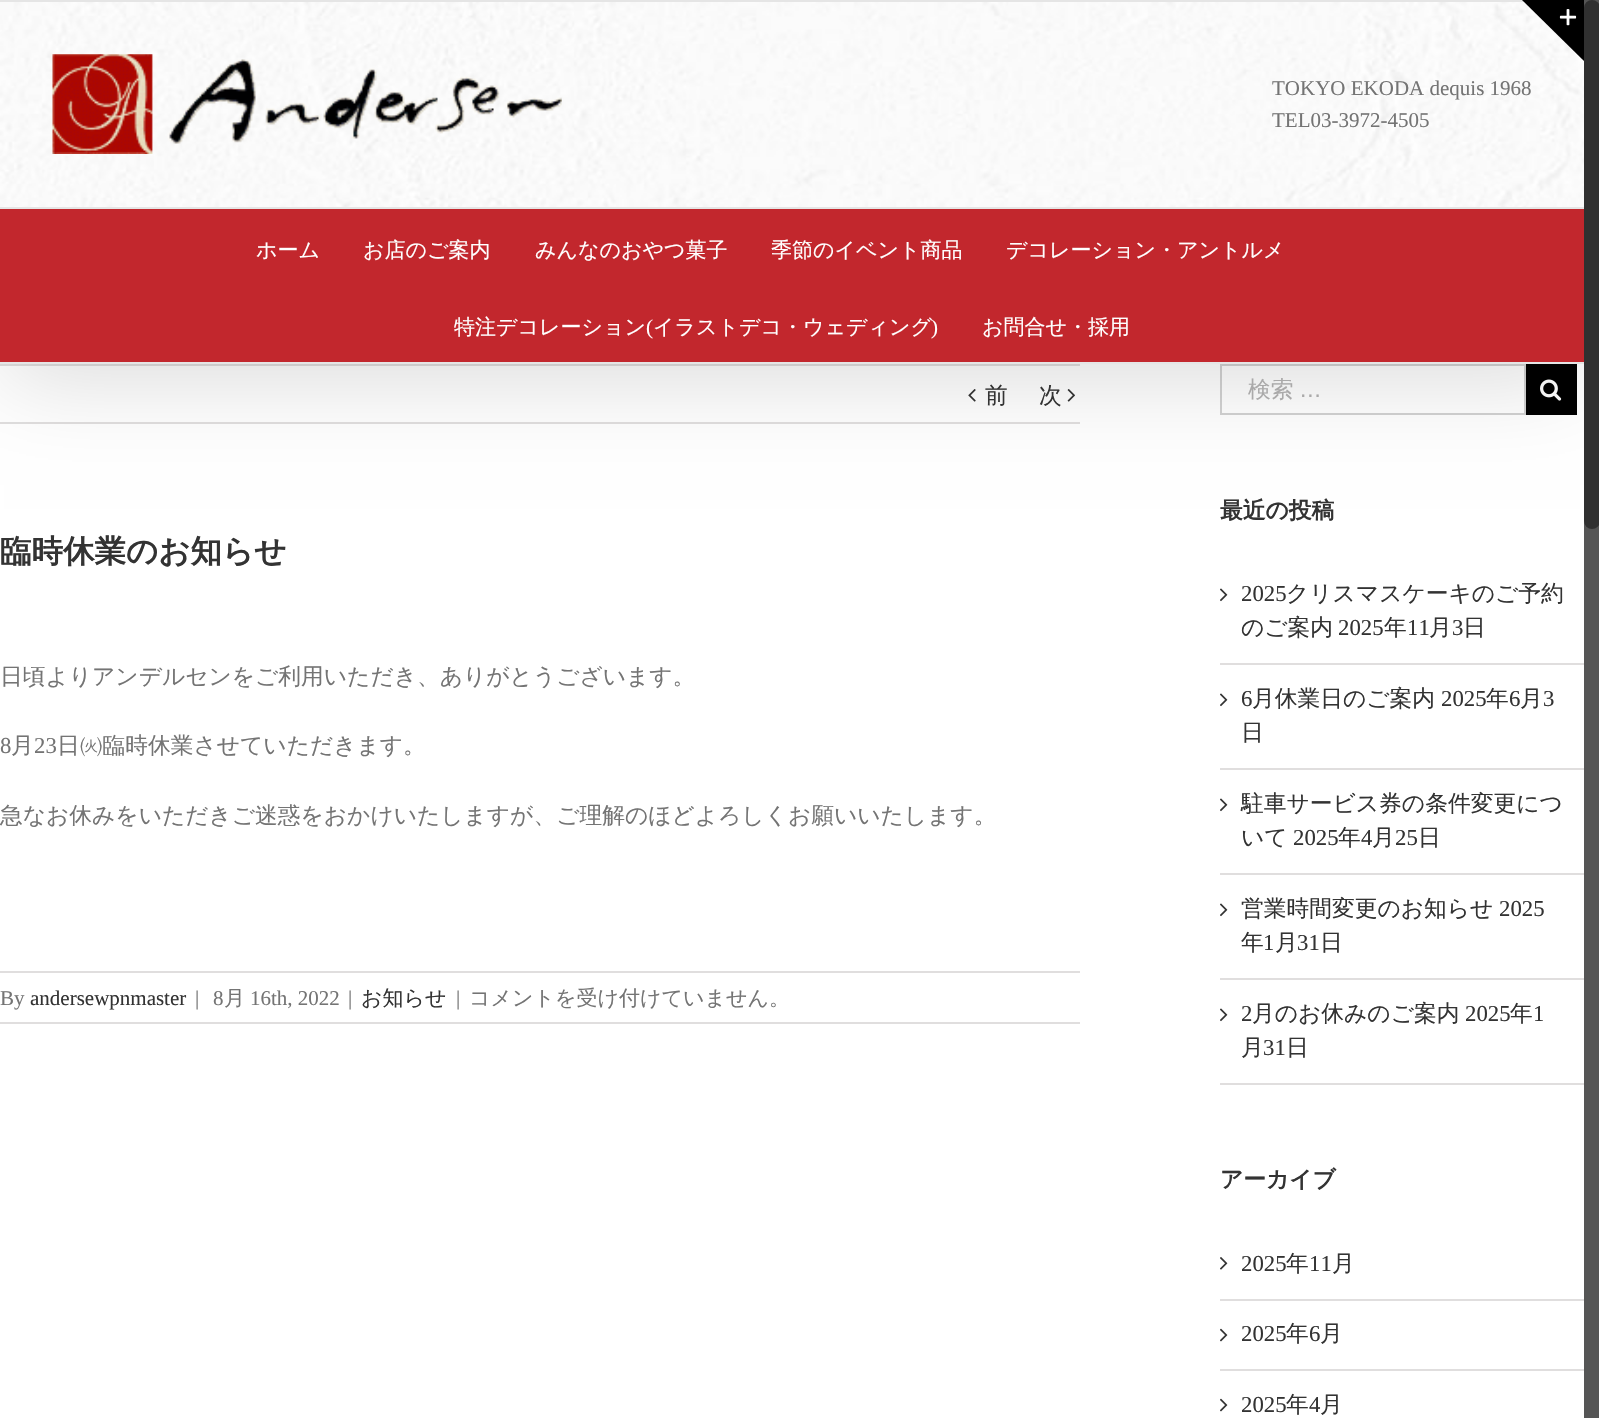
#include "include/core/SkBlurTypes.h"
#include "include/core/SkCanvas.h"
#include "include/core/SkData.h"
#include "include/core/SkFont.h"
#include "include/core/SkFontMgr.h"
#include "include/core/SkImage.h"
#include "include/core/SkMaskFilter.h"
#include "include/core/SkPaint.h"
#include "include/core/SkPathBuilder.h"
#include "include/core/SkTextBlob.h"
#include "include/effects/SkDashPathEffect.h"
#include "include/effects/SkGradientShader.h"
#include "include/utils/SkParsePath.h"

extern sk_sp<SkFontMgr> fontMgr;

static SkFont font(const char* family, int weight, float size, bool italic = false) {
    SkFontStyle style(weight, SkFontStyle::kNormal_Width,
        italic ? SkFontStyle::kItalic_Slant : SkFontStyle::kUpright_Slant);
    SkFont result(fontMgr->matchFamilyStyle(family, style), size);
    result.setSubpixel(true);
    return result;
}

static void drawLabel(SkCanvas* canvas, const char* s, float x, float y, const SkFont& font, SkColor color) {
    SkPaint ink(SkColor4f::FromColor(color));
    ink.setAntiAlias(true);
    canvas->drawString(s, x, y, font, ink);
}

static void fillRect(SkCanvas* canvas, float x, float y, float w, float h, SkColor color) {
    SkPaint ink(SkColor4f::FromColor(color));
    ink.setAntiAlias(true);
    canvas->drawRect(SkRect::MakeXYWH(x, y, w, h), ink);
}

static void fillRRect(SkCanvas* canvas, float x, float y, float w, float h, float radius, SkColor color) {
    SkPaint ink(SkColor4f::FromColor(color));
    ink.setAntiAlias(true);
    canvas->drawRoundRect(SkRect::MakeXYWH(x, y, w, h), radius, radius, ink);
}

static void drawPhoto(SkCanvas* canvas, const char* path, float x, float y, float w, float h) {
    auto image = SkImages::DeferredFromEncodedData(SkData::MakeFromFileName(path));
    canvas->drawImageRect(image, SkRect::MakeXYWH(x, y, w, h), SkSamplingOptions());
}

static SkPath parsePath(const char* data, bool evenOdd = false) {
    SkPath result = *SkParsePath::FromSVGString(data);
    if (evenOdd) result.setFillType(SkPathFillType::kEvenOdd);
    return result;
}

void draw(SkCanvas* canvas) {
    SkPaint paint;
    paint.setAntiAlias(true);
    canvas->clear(0xFFFFFFFF);
    fillRect(canvas, 0, 364, 1080, 2, 0xFFE0DEDE);
    fillRect(canvas, 0, 422, 1080, 2, 0xFFE0DEDE);
    drawPhoto(canvas, "assets/img4.png", 968, 389, 8, 13);
    drawPhoto(canvas, "assets/img5.png", 1067, 389, 8, 13);
    paint.setStroke(true);
    paint.setStrokeWidth(2);
    paint.setColor(0xFFD2D2D2);
    canvas->drawRect(SkRect::MakeXYWH(1221, 365, 304, 49), paint);
    fillRect(canvas, 1526, 364, 51, 51, 0xFF000000);
    drawPhoto(canvas, "assets/img6.png", 1540, 379, 22, 22);
    paint.setStroke(false);
    paint.setColor(0x24000000);
    paint.setMaskFilter(SkMaskFilter::MakeBlur(kNormal_SkBlurStyle, 44));
    canvas->drawRect(SkRect::MakeXYWH(4, 21, 1576, 357), paint);
    paint.setMaskFilter(nullptr);
    fillRect(canvas, 0, 0, 1524, 2, 0xFFE5E5E5);
    drawPhoto(canvas, "assets/img2.png", 0, 2, 1584, 205);
    paint.setColor(0xFF000000);
    canvas->drawPath(parsePath("M1522 0H1584V61Z"), paint);
    drawPhoto(canvas, "assets/img1.png", 1559, 9, 18, 17);
    fillRect(canvas, 0, 207, 1584, 2, 0xFFE5E5E5);
    drawPhoto(canvas, "assets/img3.png", 52, 54, 510, 100);
    SkFont font1 = font("Liberation Serif", 400, 21);
    drawLabel(canvas, "TOKYO EKODA dequis 1968", 1272, 95, font1, 0xFF747474);
    drawLabel(canvas, "TEL03-3972-4505", 1272, 127, font1, 0xFF747474);
    fillRect(canvas, 0, 209, 1584, 153, 0xFFC2272D);
    fillRect(canvas, 0, 362, 1584, 2, 0xFFE5E5E5);
    SkFont font2 = font("WenQuanYi Zen Hei", 500, 21);
    drawLabel(canvas, "ホーム", 256, 257, font2, 0xFFFFFFFF);
    drawLabel(canvas, "お店のご案内", 363, 257, font2, 0xFFFFFFFF);
    drawLabel(canvas, "みんなのおやつ菓子", 535, 257, font2, 0xFFFFFFFF);
    drawLabel(canvas, "季節のイベント商品", 771, 257, font2, 0xFFFFFFFF);
    drawLabel(canvas, "デコレーション・アントルメ", 1006, 257, font2, 0xFFFFFFFF);
    drawLabel(canvas, "特注デコレーション", 454, 334, font2, 0xFFFFFFFF);
    drawLabel(canvas, "(", 646, 334, font1, 0xFFFFFFFF);
    drawLabel(canvas, "イラストデコ・ウェディング", 653, 334, font2, 0xFFFFFFFF);
    drawLabel(canvas, ")", 931, 334, font1, 0xFFFFFFFF);
    drawLabel(canvas, "お問合せ・採用", 982, 334, font2, 0xFFFFFFFF);
    SkFont font3 = font("WenQuanYi Zen Hei", 500, 22.75f);
    drawLabel(canvas, "前", 985, 403, font3, 0xFF333333);
    drawLabel(canvas, "次", 1039, 403, font3, 0xFF333333);
    SkFont font4 = font("WenQuanYi Zen Hei", 700, 31.5f);
    drawLabel(canvas, "臨時休業のお知らせ", 0, 562, font4, 0xFF333333);
    drawLabel(canvas, "日頃よりアンデルセンをご利用いただき、ありがとうございます。", 0, 684, font3, 0xFF747474);
    SkFont font5 = font("Liberation Serif", 400, 22.75f);
    drawLabel(canvas, "8", 0, 753, font5, 0xFF747474);
    drawLabel(canvas, "月", 11, 753, font3, 0xFF747474);
    drawLabel(canvas, "23", 34, 753, font5, 0xFF747474);
    drawLabel(canvas, "日㈫臨時休業させていただきます。", 57, 753, font3, 0xFF747474);
    drawLabel(canvas, "急なお休みをいただきご迷惑をおかけいたしますが、ご理解のほどよろしくお願いいたします。", 0, 823, font3, 0xFF747474);
    fillRect(canvas, 0, 971, 1080, 2, 0xFFE0DEDE);
    fillRect(canvas, 0, 1022, 1080, 2, 0xFFE0DEDE);
    drawLabel(canvas, "By", 0, 1005, font1, 0xFF747474);
    drawLabel(canvas, "andersewpnmaster", 30, 1005, font1, 0xFF333333);
    drawLabel(canvas, "|", 195, 1005, font1, 0xFF747474);
    drawLabel(canvas, "8", 213, 1005, font1, 0xFF747474);
    drawLabel(canvas, "月", 224, 1005, font2, 0xFF747474);
    drawLabel(canvas, "16th, 2022", 250, 1005, font1, 0xFF747474);
    drawLabel(canvas, "|", 348, 1005, font1, 0xFF747474);
    drawLabel(canvas, "お知らせ", 361, 1005, font2, 0xFF333333);
    drawLabel(canvas, "|", 456, 1005, font1, 0xFF747474);
    drawLabel(canvas, "コメントを受け付けていません。", 469, 1005, font2, 0xFF747474);
    drawLabel(canvas, "検索", 1248, 397, font3, 0xFFAAA9A9);
    SkFont font6 = font("Liberation Sans", 400, 22.75f);
    drawLabel(canvas, "…", 1299, 397, font6, 0xFFAAA9A9);
    SkFont font7 = font("WenQuanYi Zen Hei", 700, 22.75f);
    drawLabel(canvas, "最近の投稿", 1220, 518, font7, 0xFF333333);
    fillRect(canvas, 1220, 663, 364, 2, 0xFFE0DEDE);
    drawPhoto(canvas, "assets/img7.png", 1220, 588, 8, 14);
    drawLabel(canvas, "2025", 1241, 601, font5, 0xFF333333);
    drawLabel(canvas, "クリスマスケーキのご予約", 1286, 601, font3, 0xFF333333);
    drawLabel(canvas, "のご案内", 1241, 635, font3, 0xFF333333);
    drawLabel(canvas, "2025", 1338, 635, font5, 0xFF333333);
    drawLabel(canvas, "年", 1384, 635, font3, 0xFF333333);
    drawLabel(canvas, "11", 1407, 635, font5, 0xFF333333);
    drawLabel(canvas, "月", 1429, 635, font3, 0xFF333333);
    drawLabel(canvas, "3", 1452, 635, font5, 0xFF333333);
    drawLabel(canvas, "日", 1463, 635, font3, 0xFF333333);
    fillRect(canvas, 1220, 768, 364, 2, 0xFFE0DEDE);
    drawPhoto(canvas, "assets/img7.png", 1220, 693, 8, 14);
    drawLabel(canvas, "6", 1241, 706, font5, 0xFF333333);
    drawLabel(canvas, "月休業日のご案内", 1252, 706, font3, 0xFF333333);
    drawLabel(canvas, "2025", 1441, 706, font5, 0xFF333333);
    drawLabel(canvas, "年", 1486, 706, font3, 0xFF333333);
    drawLabel(canvas, "6", 1509, 706, font5, 0xFF333333);
    drawLabel(canvas, "月", 1520, 706, font3, 0xFF333333);
    drawLabel(canvas, "3", 1543, 706, font5, 0xFF333333);
    drawLabel(canvas, "日", 1241, 740, font3, 0xFF333333);
    fillRect(canvas, 1220, 873, 364, 2, 0xFFE0DEDE);
    drawPhoto(canvas, "assets/img7.png", 1220, 798, 8, 14);
    drawLabel(canvas, "駐車サービス券の条件変更につ", 1241, 811, font3, 0xFF333333);
    drawLabel(canvas, "いて", 1241, 845, font3, 0xFF333333);
    drawLabel(canvas, "2025", 1293, 845, font5, 0xFF333333);
    drawLabel(canvas, "年", 1338, 845, font3, 0xFF333333);
    drawLabel(canvas, "4", 1361, 845, font5, 0xFF333333);
    drawLabel(canvas, "月", 1372, 845, font3, 0xFF333333);
    drawLabel(canvas, "25", 1395, 845, font5, 0xFF333333);
    drawLabel(canvas, "日", 1418, 845, font3, 0xFF333333);
    fillRect(canvas, 1220, 978, 364, 2, 0xFFE0DEDE);
    drawPhoto(canvas, "assets/img7.png", 1220, 903, 8, 14);
    drawLabel(canvas, "営業時間変更のお知らせ", 1241, 916, font3, 0xFF333333);
    drawLabel(canvas, "2025", 1499, 916, font5, 0xFF333333);
    drawLabel(canvas, "年", 1241, 950, font3, 0xFF333333);
    drawLabel(canvas, "1", 1263, 950, font5, 0xFF333333);
    drawLabel(canvas, "月", 1275, 950, font3, 0xFF333333);
    drawLabel(canvas, "31", 1297, 950, font5, 0xFF333333);
    drawLabel(canvas, "日", 1320, 950, font3, 0xFF333333);
    fillRect(canvas, 1220, 1083, 364, 2, 0xFFE0DEDE);
    drawPhoto(canvas, "assets/img7.png", 1220, 1008, 8, 14);
    drawLabel(canvas, "2", 1241, 1021, font5, 0xFF333333);
    drawLabel(canvas, "月のお休みのご案内", 1252, 1021, font3, 0xFF333333);
    drawLabel(canvas, "2025", 1465, 1021, font5, 0xFF333333);
    drawLabel(canvas, "年", 1510, 1021, font3, 0xFF333333);
    drawLabel(canvas, "1", 1533, 1021, font5, 0xFF333333);
    drawLabel(canvas, "月", 1241, 1055, font3, 0xFF333333);
    drawLabel(canvas, "31", 1263, 1055, font5, 0xFF333333);
    drawLabel(canvas, "日", 1286, 1055, font3, 0xFF333333);
    drawLabel(canvas, "アーカイブ", 1220, 1187, font7, 0xFF333333);
    fillRect(canvas, 1220, 1299, 364, 2, 0xFFE0DEDE);
    drawPhoto(canvas, "assets/img8.png", 1220, 1257, 8, 13);
    drawLabel(canvas, "2025", 1241, 1271, font5, 0xFF333333);
    drawLabel(canvas, "年", 1286, 1271, font3, 0xFF333333);
    drawLabel(canvas, "11", 1309, 1271, font5, 0xFF333333);
    drawLabel(canvas, "月", 1332, 1271, font3, 0xFF333333);
    fillRect(canvas, 1220, 1369, 364, 2, 0xFFE0DEDE);
    drawPhoto(canvas, "assets/img9.png", 1220, 1328, 8, 14);
    drawLabel(canvas, "2025", 1241, 1341, font5, 0xFF333333);
    drawLabel(canvas, "年", 1286, 1341, font3, 0xFF333333);
    drawLabel(canvas, "6", 1309, 1341, font5, 0xFF333333);
    drawLabel(canvas, "月", 1320, 1341, font3, 0xFF333333);
    drawPhoto(canvas, "assets/img9.png", 1220, 1398, 8, 14);
    drawLabel(canvas, "2025", 1241, 1412, font5, 0xFF333333);
    drawLabel(canvas, "年", 1286, 1412, font3, 0xFF333333);
    drawLabel(canvas, "4", 1309, 1412, font5, 0xFF333333);
    drawLabel(canvas, "月", 1320, 1412, font3, 0xFF333333);
    fillRect(canvas, 1584, 0, 15, 1418, 0xFF555555);
    fillRRect(canvas, 1584, 0, 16, 529, 8, 0xFF303030);
}
